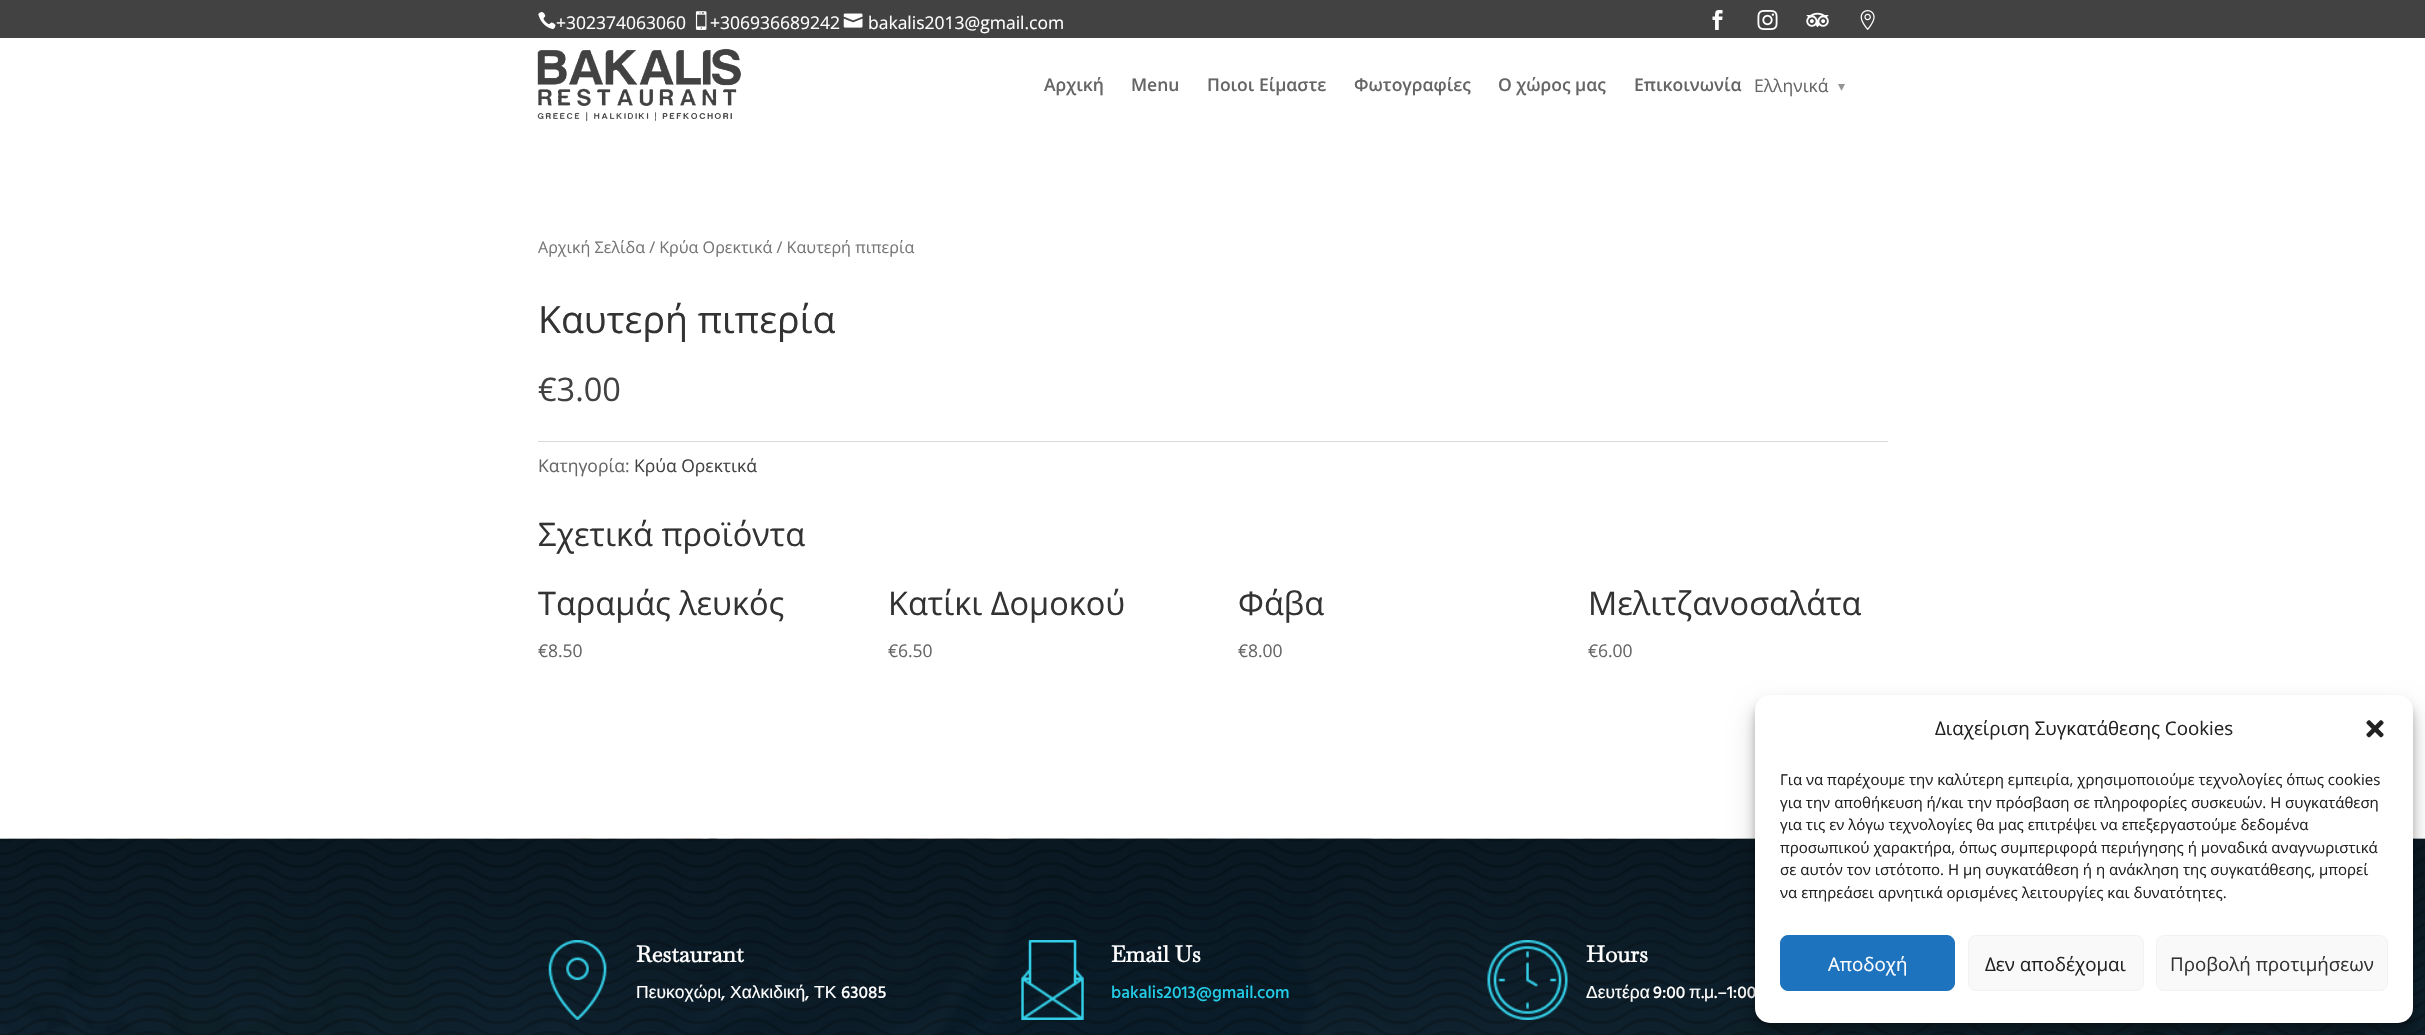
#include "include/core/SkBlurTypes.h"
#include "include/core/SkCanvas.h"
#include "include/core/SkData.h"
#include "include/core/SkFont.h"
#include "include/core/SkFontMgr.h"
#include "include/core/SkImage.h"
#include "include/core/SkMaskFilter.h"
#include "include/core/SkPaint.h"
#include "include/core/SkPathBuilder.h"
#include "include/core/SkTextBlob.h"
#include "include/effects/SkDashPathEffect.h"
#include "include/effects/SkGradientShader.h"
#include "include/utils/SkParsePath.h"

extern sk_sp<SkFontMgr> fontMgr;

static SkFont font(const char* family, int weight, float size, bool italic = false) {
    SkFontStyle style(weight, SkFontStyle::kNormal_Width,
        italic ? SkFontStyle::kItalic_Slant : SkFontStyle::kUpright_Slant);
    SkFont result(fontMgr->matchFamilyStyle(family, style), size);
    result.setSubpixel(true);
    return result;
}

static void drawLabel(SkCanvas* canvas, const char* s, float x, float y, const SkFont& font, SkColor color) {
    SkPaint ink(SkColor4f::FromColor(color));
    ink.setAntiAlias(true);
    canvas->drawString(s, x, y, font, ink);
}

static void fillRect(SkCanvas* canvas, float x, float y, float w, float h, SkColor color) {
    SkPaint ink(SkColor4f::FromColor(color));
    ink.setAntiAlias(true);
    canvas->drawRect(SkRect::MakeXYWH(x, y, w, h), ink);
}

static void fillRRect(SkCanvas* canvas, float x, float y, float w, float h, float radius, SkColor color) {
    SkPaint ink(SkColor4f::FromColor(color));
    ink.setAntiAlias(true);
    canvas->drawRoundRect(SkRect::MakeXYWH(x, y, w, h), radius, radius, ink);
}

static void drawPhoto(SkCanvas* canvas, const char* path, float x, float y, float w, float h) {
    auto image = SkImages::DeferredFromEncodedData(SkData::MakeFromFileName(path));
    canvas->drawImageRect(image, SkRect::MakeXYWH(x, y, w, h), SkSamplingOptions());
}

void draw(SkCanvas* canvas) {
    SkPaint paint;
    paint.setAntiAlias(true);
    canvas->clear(0xFFFFFFFF);
    fillRect(canvas, 0, 0, 2425, 38, 0xFF424242);
    drawPhoto(canvas, "assets/img1.png", 538, 12, 18, 18);
    SkFont font1 = font("Open Sans", 400, 17.5f);
    drawLabel(canvas, "+302374063060", 556, 29, font1, 0xFFFFFFFF);
    drawPhoto(canvas, "assets/img2.png", 695, 11, 12, 19);
    drawLabel(canvas, "+306936689242", 710, 29, font1, 0xFFFFFFFF);
    drawPhoto(canvas, "assets/img3.png", 843, 13, 20, 15);
    drawLabel(canvas, "bakalis2013@gmail.com", 868, 29, font1, 0xFFFFFFFF);
    drawPhoto(canvas, "assets/img4.png", 1712, 10, 11, 20);
    drawPhoto(canvas, "assets/img5.png", 1757, 10, 21, 20);
    drawPhoto(canvas, "assets/img6.png", 1806, 12, 23, 16);
    drawPhoto(canvas, "assets/img7.png", 1860, 10, 15, 20);
    drawPhoto(canvas, "assets/img8.png", 537, 48, 204, 74);
    SkFont font2 = font("Open Sans", 600, 17.5f);
    drawLabel(canvas, "Αρχική", 1044, 91, font2, 0xFF666666);
    drawLabel(canvas, "Menu", 1131, 91, font2, 0xFF666666);
    drawLabel(canvas, "Ποιοι Είμαστε", 1207, 91, font2, 0xFF666666);
    drawLabel(canvas, "Φωτογραφίες", 1354, 91, font2, 0xFF666666);
    drawLabel(canvas, "Ο χώρος μας", 1498, 91, font2, 0xFF666666);
    drawLabel(canvas, "Επικοινωνία", 1634, 91, font2, 0xFF666666);
    drawLabel(canvas, "Ελληνικά", 1754, 92, font1, 0xFF666666);
    SkFont font3 = font("DejaVu Sans", 400, 14);
    drawLabel(canvas, "▾", 1838, 91, font3, 0xFF949494);
    SkFont font4 = font("Open Sans", 400, 16.1f);
    drawLabel(canvas, "Αρχική Σελίδα / Κρύα Ορεκτικά / Καυτερή πιπερία", 538, 253, font4, 0xFF767676);
    SkFont font5 = font("Open Sans", 400, 37.5f);
    drawLabel(canvas, "Καυτερή πιπερία", 538, 333, font5, 0xFF333333);
    SkFont font6 = font("Open Sans", 400, 32.5f);
    drawLabel(canvas, "€3.00", 538, 401, font6, 0xFF424242);
    fillRect(canvas, 538, 441, 1350, 1, 0xFFDADADA);
    drawLabel(canvas, "Κατηγορία:", 538, 472, font1, 0xFF666666);
    drawLabel(canvas, "Κρύα Ορεκτικά", 634, 472, font1, 0xFF424242);
    drawLabel(canvas, "Σχετικά προϊόντα", 538, 546, font6, 0xFF333333);
    drawLabel(canvas, "Ταραμάς λευκός", 538, 615, font6, 0xFF333333);
    drawLabel(canvas, "€8.50", 538, 657, font1, 0xFF666666);
    drawLabel(canvas, "Κατίκι Δομοκού", 888, 615, font6, 0xFF333333);
    drawLabel(canvas, "€6.50", 888, 657, font1, 0xFF666666);
    drawLabel(canvas, "Φάβα", 1238, 615, font6, 0xFF333333);
    drawLabel(canvas, "€8.00", 1238, 657, font1, 0xFF666666);
    drawLabel(canvas, "Μελιτζανοσαλάτα", 1588, 615, font6, 0xFF333333);
    drawLabel(canvas, "€6.00", 1588, 657, font1, 0xFF666666);
    drawPhoto(canvas, "assets/img9.png", 0, 838, 2425, 197);
    drawPhoto(canvas, "assets/img10.png", 0, 838, 2425, 197);
    drawPhoto(canvas, "assets/img11.png", 548, 940, 59, 80);
    SkFont font7 = font("Baskervville", 700, 22.5f);
    drawLabel(canvas, "Restaurant", 636, 962, font7, 0xFFFFFFFF);
    SkFont font8 = font("Liberation Sans", 400, 17.5f);
    drawLabel(canvas, "Πευκοχώρι", 636, 998, font8, 0xFFFFFFFF);
    SkFont font9 = font("Hind", 500, 17.5f);
    drawLabel(canvas, ",", 721, 998, font9, 0xFFFFFFFF);
    drawLabel(canvas, "Χαλκιδική", 730, 998, font8, 0xFFFFFFFF);
    drawLabel(canvas, ",", 805, 998, font9, 0xFFFFFFFF);
    drawLabel(canvas, "ΤΚ", 814, 998, font8, 0xFFFFFFFF);
    drawLabel(canvas, "63085", 841, 998, font9, 0xFFFFFFFF);
    drawPhoto(canvas, "assets/img12.png", 1021, 940, 63, 80);
    drawLabel(canvas, "Email Us", 1111, 962, font7, 0xFFFFFFFF);
    drawLabel(canvas, "bakalis2013@gmail.com", 1111, 998, font9, 0xFF23CDE7);
    drawPhoto(canvas, "assets/img13.png", 1487, 940, 81, 80);
    drawLabel(canvas, "Hours", 1586, 962, font7, 0xFFFFFFFF);
    drawLabel(canvas, "Δευτέρα", 1586, 998, font8, 0xFFFFFFFF);
    drawLabel(canvas, "9:00", 1653, 998, font9, 0xFFFFFFFF);
    drawLabel(canvas, "π", 1689, 998, font8, 0xFFFFFFFF);
    drawLabel(canvas, ".", 1701, 998, font9, 0xFFFFFFFF);
    drawLabel(canvas, "μ", 1704, 998, font8, 0xFFFFFFFF);
    drawLabel(canvas, ".–1:00", 1714, 998, font9, 0xFFFFFFFF);
    paint.setColor(0x3B000000);
    paint.setMaskFilter(SkMaskFilter::MakeBlur(kNormal_SkBlurStyle, 4));
    canvas->drawRoundRect(SkRect::MakeXYWH(1755, 703, 658, 327), 15, 15, paint);
    paint.setMaskFilter(nullptr);
    paint.setColor(0x30000000);
    paint.setMaskFilter(SkMaskFilter::MakeBlur(kNormal_SkBlurStyle, 12.5f));
    canvas->drawRoundRect(SkRect::MakeXYWH(1755, 708, 658, 327), 15, 15, paint);
    paint.setMaskFilter(nullptr);
    fillRRect(canvas, 1755, 695, 658, 328, 15, 0xFFFFFFFF);
    SkFont font10 = font("Open Sans", 400, 18.75f);
    drawLabel(canvas, "Διαχείριση Συγκατάθεσης Cookies", 1935, 735, font10, 0xFF222222);
    drawPhoto(canvas, "assets/img14.png", 2366, 720, 18, 18);
    SkFont font11 = font("Open Sans", 400, 15);
    drawLabel(canvas, "Για να παρέχουμε την καλύτερη εμπειρία, χρησιμοποιούμε τεχνολογίες όπως cookies", 1780, 785, font11, 0xFF222222);
    drawLabel(canvas, "για την αποθήκευση ή/και την πρόσβαση σε πληροφορίες συσκευών. Η συγκατάθεση", 1780, 808, font11, 0xFF222222);
    drawLabel(canvas, "για τις εν λόγω τεχνολογίες θα μας επιτρέψει να επεξεργαστούμε δεδομένα", 1780, 830, font11, 0xFF222222);
    drawLabel(canvas, "προσωπικού χαρακτήρα, όπως συμπεριφορά περιήγησης ή μοναδικά αναγνωριστικά", 1780, 853, font11, 0xFF222222);
    drawLabel(canvas, "σε αυτόν τον ιστότοπο. Η μη συγκατάθεση ή η ανάκληση της συγκατάθεσης, μπορεί", 1780, 875, font11, 0xFF222222);
    drawLabel(canvas, "να επηρεάσει αρνητικά ορισμένες λειτουργίες και δυνατότητες.", 1780, 898, font11, 0xFF222222);
    paint.setColor(0xFF1E73BE);
    canvas->drawRoundRect(SkRect::MakeXYWH(1780.5f, 935.5f, 174, 55), 7.5f, 7.5f, paint);
    paint.setStroke(true);
    paint.setStrokeWidth(1);
    canvas->drawRoundRect(SkRect::MakeXYWH(1780.5f, 935.5f, 174, 55), 7.5f, 7.5f, paint);
    drawLabel(canvas, "Αποδοχή", 1828, 971, font10, 0xFFFFFFFF);
    paint.setStroke(false);
    paint.setColor(0xFFF9F9F9);
    canvas->drawRoundRect(SkRect::MakeXYWH(1968.5f, 935.5f, 175, 55), 7.5f, 7.5f, paint);
    paint.setStroke(true);
    paint.setColor(0xFFF2F2F2);
    canvas->drawRoundRect(SkRect::MakeXYWH(1968.5f, 935.5f, 175, 55), 7.5f, 7.5f, paint);
    drawLabel(canvas, "Δεν αποδέχομαι", 1985, 971, font10, 0xFF222222);
    paint.setStroke(false);
    paint.setColor(0xFFF9F9F9);
    canvas->drawRoundRect(SkRect::MakeXYWH(2156.5f, 935.5f, 231, 55), 7.5f, 7.5f, paint);
    paint.setStroke(true);
    paint.setColor(0xFFF2F2F2);
    canvas->drawRoundRect(SkRect::MakeXYWH(2156.5f, 935.5f, 231, 55), 7.5f, 7.5f, paint);
    drawLabel(canvas, "Προβολή προτιμήσεων", 2170, 971, font10, 0xFF333333);
}
